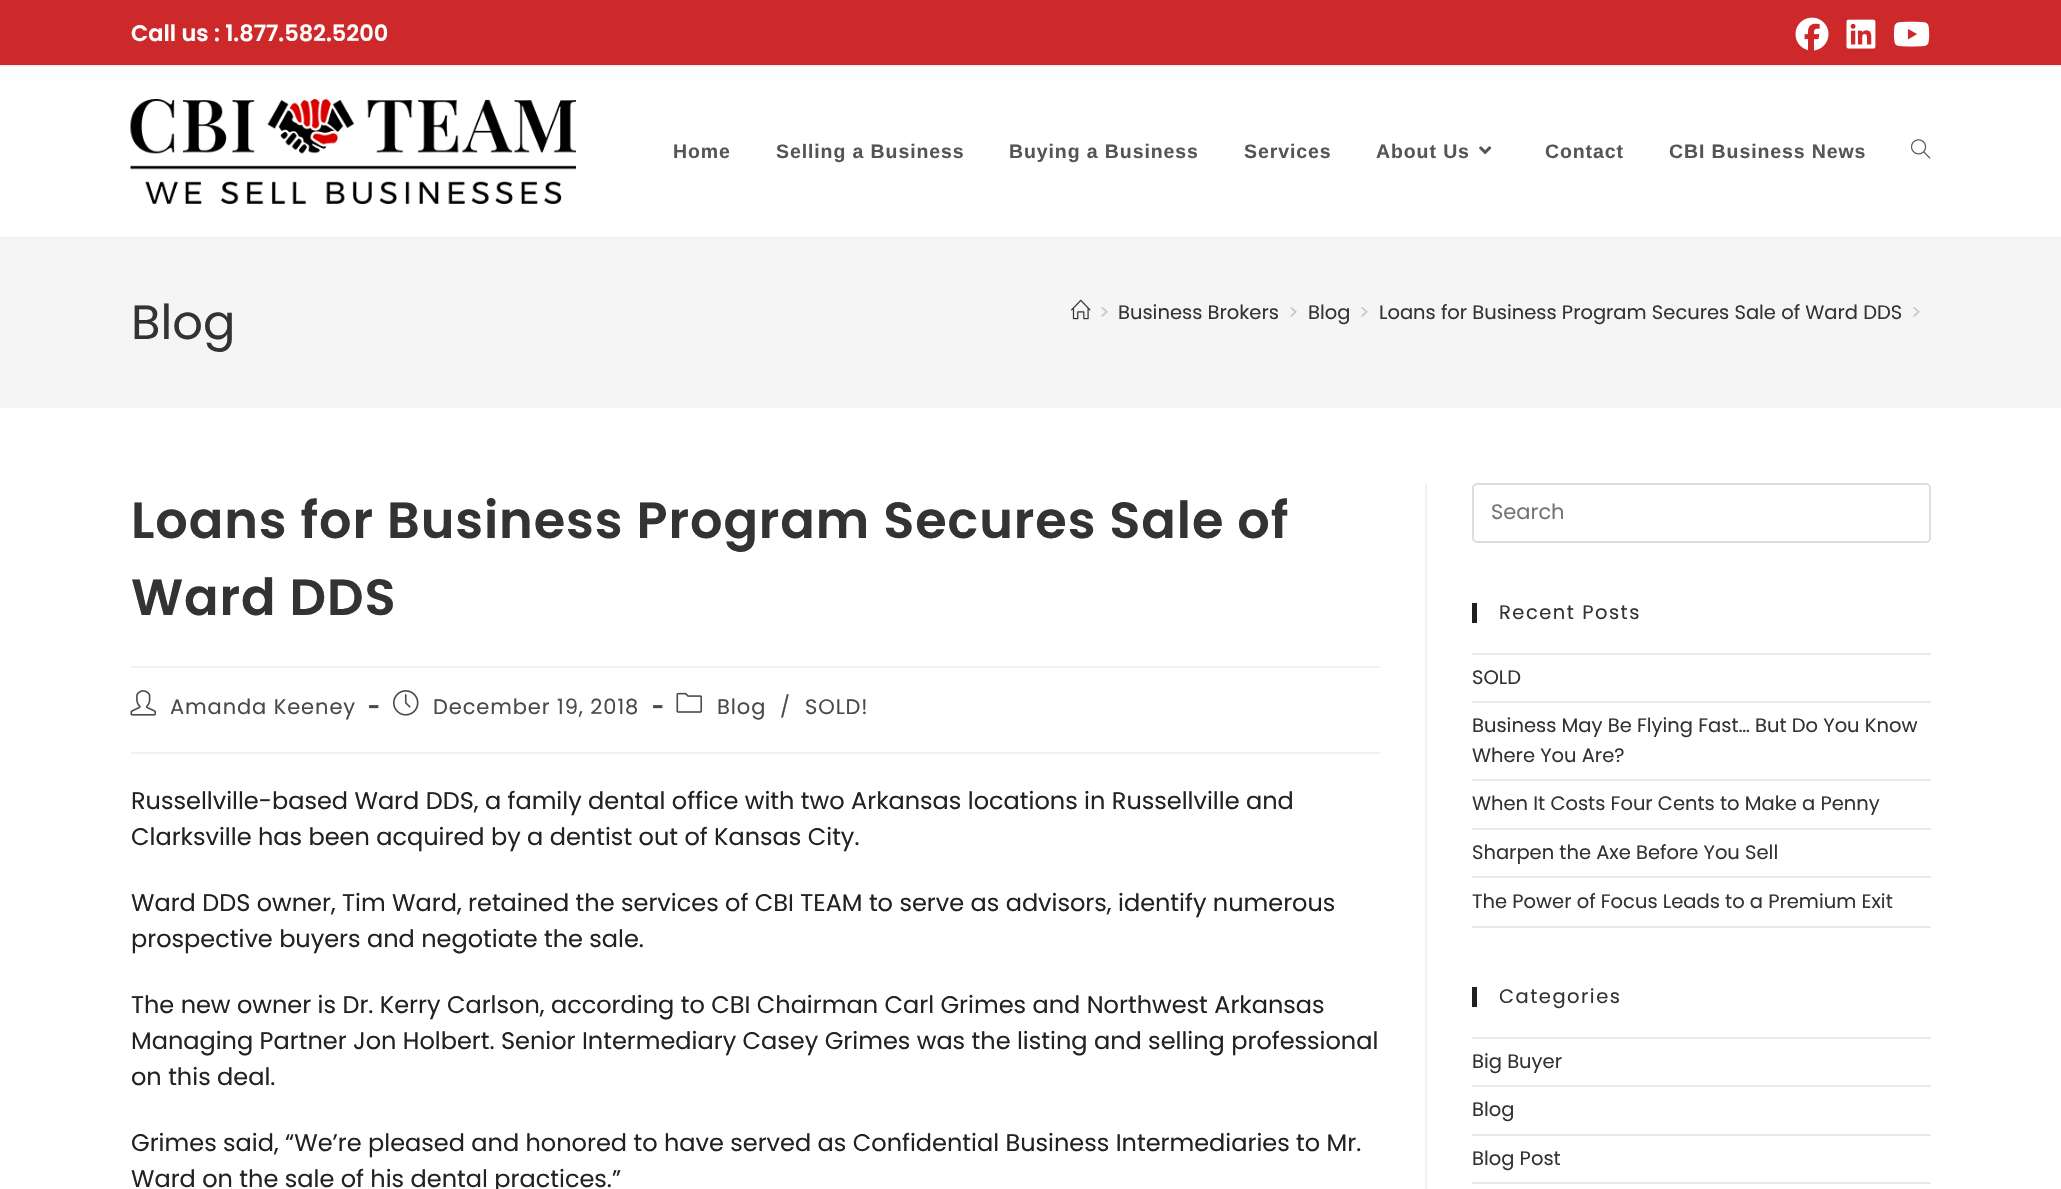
#include "include/core/SkBlurTypes.h"
#include "include/core/SkCanvas.h"
#include "include/core/SkData.h"
#include "include/core/SkFont.h"
#include "include/core/SkFontMgr.h"
#include "include/core/SkImage.h"
#include "include/core/SkMaskFilter.h"
#include "include/core/SkPaint.h"
#include "include/core/SkPathBuilder.h"
#include "include/core/SkTextBlob.h"
#include "include/effects/SkDashPathEffect.h"
#include "include/effects/SkGradientShader.h"
#include "include/utils/SkParsePath.h"

extern sk_sp<SkFontMgr> fontMgr;

static SkFont font(const char* family, int weight, float size, bool italic = false) {
    SkFontStyle style(weight, SkFontStyle::kNormal_Width,
        italic ? SkFontStyle::kItalic_Slant : SkFontStyle::kUpright_Slant);
    SkFont result(fontMgr->matchFamilyStyle(family, style), size);
    result.setSubpixel(true);
    return result;
}

static void drawLabel(SkCanvas* canvas, const char* s, float x, float y, const SkFont& font, SkColor color) {
    SkPaint ink(SkColor4f::FromColor(color));
    ink.setAntiAlias(true);
    canvas->drawString(s, x, y, font, ink);
}

static void drawTracked(SkCanvas* canvas, const char* s, float x, float y, const SkFont& font, const SkPaint& ink, float letter, float word) {
    std::vector<SkGlyphID> glyphs(font.countText(s, strlen(s), SkTextEncoding::kUTF8));
    std::vector<float> xs(glyphs.size());
    font.textToGlyphs(s, strlen(s), SkTextEncoding::kUTF8, glyphs);
    font.getXPos(glyphs, xs, x);
    float extra = 0;
    for (size_t i = 0; i < glyphs.size(); i++) {
        xs[i] += extra;
        extra += letter + word * (glyphs[i] == font.unicharToGlyph(' '));
    }
    canvas->drawTextBlob(SkTextBlob::MakeFromPosHGlyphs(glyphs, xs, y, font), 0, 0, ink);
}

static void fillRect(SkCanvas* canvas, float x, float y, float w, float h, SkColor color) {
    SkPaint ink(SkColor4f::FromColor(color));
    ink.setAntiAlias(true);
    canvas->drawRect(SkRect::MakeXYWH(x, y, w, h), ink);
}

static void drawPhoto(SkCanvas* canvas, const char* path, float x, float y, float w, float h) {
    auto image = SkImages::DeferredFromEncodedData(SkData::MakeFromFileName(path));
    canvas->drawImageRect(image, SkRect::MakeXYWH(x, y, w, h), SkSamplingOptions());
}

void draw(SkCanvas* canvas) {
    SkPaint paint;
    paint.setAntiAlias(true);
    canvas->clear(0xFFFFFFFF);
    fillRect(canvas, 0, 0, 2061, 65, 0xFFCD292A);
    fillRect(canvas, 0, 65, 2061, 2, 0xFFF1F1F1);
    SkFont font1 = font("Poppins", 600, 22.5f);
    drawLabel(canvas, "Call us : 1.877.582.5200", 131, 41, font1, 0xFFFFFFFF);
    drawPhoto(canvas, "assets/img1.png", 1795, 17, 34, 34);
    drawPhoto(canvas, "assets/img2.png", 1846, 19, 30, 30);
    drawPhoto(canvas, "assets/img3.png", 1893, 21, 37, 26);
    fillRect(canvas, 0, 237, 2061, 2, 0xFFF1F1F1);
    drawPhoto(canvas, "assets/img4.png", 130, 99, 446, 105);
    SkFont font2 = font("Liberation Sans", 700, 19.5f);
    paint.setColor(0xFF555555);
    drawTracked(canvas, "Home", 673, 158, font2, paint, 0.9f, 0);
    drawTracked(canvas, "Selling a Business", 776, 158, font2, paint, 0.9f, 0);
    drawTracked(canvas, "Buying a Business", 1009, 158, font2, paint, 0.9f, 0);
    drawTracked(canvas, "Services", 1244, 158, font2, paint, 0.9f, 0);
    drawTracked(canvas, "About Us", 1376, 158, font2, paint, 0.9f, 0);
    drawPhoto(canvas, "assets/img5.png", 1479, 146, 13, 8);
    drawTracked(canvas, "Contact", 1545, 158, font2, paint, 0.9f, 0);
    drawTracked(canvas, "CBI Business News", 1669, 158, font2, paint, 0.9f, 0);
    drawPhoto(canvas, "assets/img6.png", 1911, 139, 20, 20);
    fillRect(canvas, 0, 239, 2061, 169, 0xFFF5F5F5);
    SkFont font3 = font("Poppins", 400, 48);
    drawLabel(canvas, "Blog", 131, 339, font3, 0xFF333333);
    drawPhoto(canvas, "assets/img7.png", 1071, 299, 20, 21);
    SkFont font4 = font("Poppins", 400, 19.5f);
    drawLabel(canvas, ">", 1099, 319, font4, 0xFFC6C6C6);
    drawLabel(canvas, "Business Brokers", 1118, 319, font4, 0xFF333333);
    drawLabel(canvas, ">", 1288, 319, font4, 0xFFC6C6C6);
    drawLabel(canvas, "Blog", 1308, 319, font4, 0xFF333333);
    drawLabel(canvas, ">", 1359, 319, font4, 0xFFC6C6C6);
    drawLabel(canvas, "Loans for Business Program Secures Sale of Ward DDS", 1379, 319, font4, 0xFF333333);
    drawLabel(canvas, ">", 1911, 319, font4, 0xFFC6C6C6);
    fillRect(canvas, 1425, 483, 2, 706, 0xFFF1F1F1);
    fillRect(canvas, 131, 666, 1249, 2, 0xFFF1F1F1);
    SkFont font5 = font("Poppins", 600, 51);
    paint.setColor(0xFF333333);
    drawTracked(canvas, "Loans for Business Program Secures Sale of", 131, 538, font5, paint, 0.9f, 0);
    drawTracked(canvas, "Ward DDS", 131, 615, font5, paint, 0.9f, 0);
    fillRect(canvas, 131, 752, 1249, 2, 0xFFF1F1F1);
    drawPhoto(canvas, "assets/img8.png", 130, 690, 26, 26);
    SkFont font6 = font("Poppins", 400, 21);
    paint.setColor(0xFF4A4A4A);
    drawTracked(canvas, "Amanda Keeney", 170, 714, font6, paint, 0.9f, 0);
    SkFont font7 = font("Poppins", 700, 21);
    drawTracked(canvas, "-", 368, 714, font7, paint, 0.9f, 0);
    drawPhoto(canvas, "assets/img9.png", 393, 690, 26, 26);
    drawTracked(canvas, "December 19, 2018", 433, 714, font6, paint, 0.9f, 0);
    drawTracked(canvas, "-", 652, 714, font7, paint, 0.9f, 0);
    drawPhoto(canvas, "assets/img10.png", 676, 692, 26, 21);
    drawTracked(canvas, "Blog", 717, 714, font6, paint, 0.9f, 0);
    drawTracked(canvas, "/", 780, 714, font6, paint, 0.9f, 0);
    drawTracked(canvas, "SOLD!", 805, 714, font6, paint, 0.9f, 0);
    SkFont font8 = font("Poppins", 400, 24);
    drawLabel(canvas, "Russellville-based Ward DDS, a family dental office with two Arkansas locations in Russellville and", 131, 809, font8, 0xFF222222);
    drawLabel(canvas, "Clarksville has been acquired by a dentist out of Kansas City.", 131, 845, font8, 0xFF222222);
    drawLabel(canvas, "Ward DDS owner, Tim Ward, retained the services of CBI TEAM to serve as advisors, identify numerous", 131, 911, font8, 0xFF222222);
    drawLabel(canvas, "prospective buyers and negotiate the sale.", 131, 947, font8, 0xFF222222);
    drawLabel(canvas, "The new owner is Dr. Kerry Carlson, according to CBI Chairman Carl Grimes and Northwest Arkansas", 131, 1013, font8, 0xFF222222);
    drawLabel(canvas, "Managing Partner Jon Holbert. Senior Intermediary Casey Grimes was the listing and selling professional", 131, 1049, font8, 0xFF222222);
    drawLabel(canvas, "on this deal.", 131, 1085, font8, 0xFF222222);
    drawLabel(canvas, "Grimes said, “We’re pleased and honored to have served as Confidential Business Intermediaries to Mr.", 131, 1151, font8, 0xFF222222);
    drawLabel(canvas, "Ward on the sale of his dental practices.”", 131, 1187, font8, 0xFF222222);
    paint.setStroke(true);
    paint.setStrokeWidth(2);
    paint.setColor(0xFFDDDDDD);
    canvas->drawRoundRect(SkRect::MakeXYWH(1473, 484, 457, 58), 4, 4, paint);
    drawLabel(canvas, "Search", 1491, 519, font6, 0xFF757575);
    fillRect(canvas, 1472, 603, 5, 20, 0xFF211F20);
    paint.setStroke(false);
    paint.setColor(0xFF333333);
    drawTracked(canvas, "Recent Posts", 1499, 619, font4, paint, 1.5f, 0);
    fillRect(canvas, 1472, 653, 459, 2, 0xFFE9E9E9);
    fillRect(canvas, 1472, 701, 459, 2, 0xFFE9E9E9);
    drawLabel(canvas, "SOLD", 1472, 684, font4, 0xFF333333);
    fillRect(canvas, 1472, 779, 459, 2, 0xFFE9E9E9);
    drawLabel(canvas, "Business May Be Flying Fast… But Do You Know", 1472, 732, font4, 0xFF333333);
    drawLabel(canvas, "Where You Are?", 1472, 762, font4, 0xFF333333);
    fillRect(canvas, 1472, 828, 459, 2, 0xFFE9E9E9);
    drawLabel(canvas, "When It Costs Four Cents to Make a Penny", 1472, 810, font4, 0xFF333333);
    fillRect(canvas, 1472, 876, 459, 2, 0xFFE9E9E9);
    drawLabel(canvas, "Sharpen the Axe Before You Sell", 1472, 859, font4, 0xFF333333);
    fillRect(canvas, 1472, 926, 459, 2, 0xFFE9E9E9);
    drawLabel(canvas, "The Power of Focus Leads to a Premium Exit", 1472, 908, font4, 0xFF333333);
    fillRect(canvas, 1472, 987, 5, 20, 0xFF211F20);
    drawTracked(canvas, "Categories", 1499, 1003, font4, paint, 1.5f, 0);
    fillRect(canvas, 1472, 1037, 459, 2, 0xFFE9E9E9);
    fillRect(canvas, 1472, 1085, 459, 2, 0xFFE9E9E9);
    drawLabel(canvas, "Big Buyer", 1472, 1068, font4, 0xFF333333);
    fillRect(canvas, 1472, 1134, 459, 2, 0xFFE9E9E9);
    drawLabel(canvas, "Blog", 1472, 1116, font4, 0xFF333333);
    fillRect(canvas, 1472, 1182, 459, 2, 0xFFE9E9E9);
    drawLabel(canvas, "Blog Post", 1472, 1165, font4, 0xFF333333);
}
